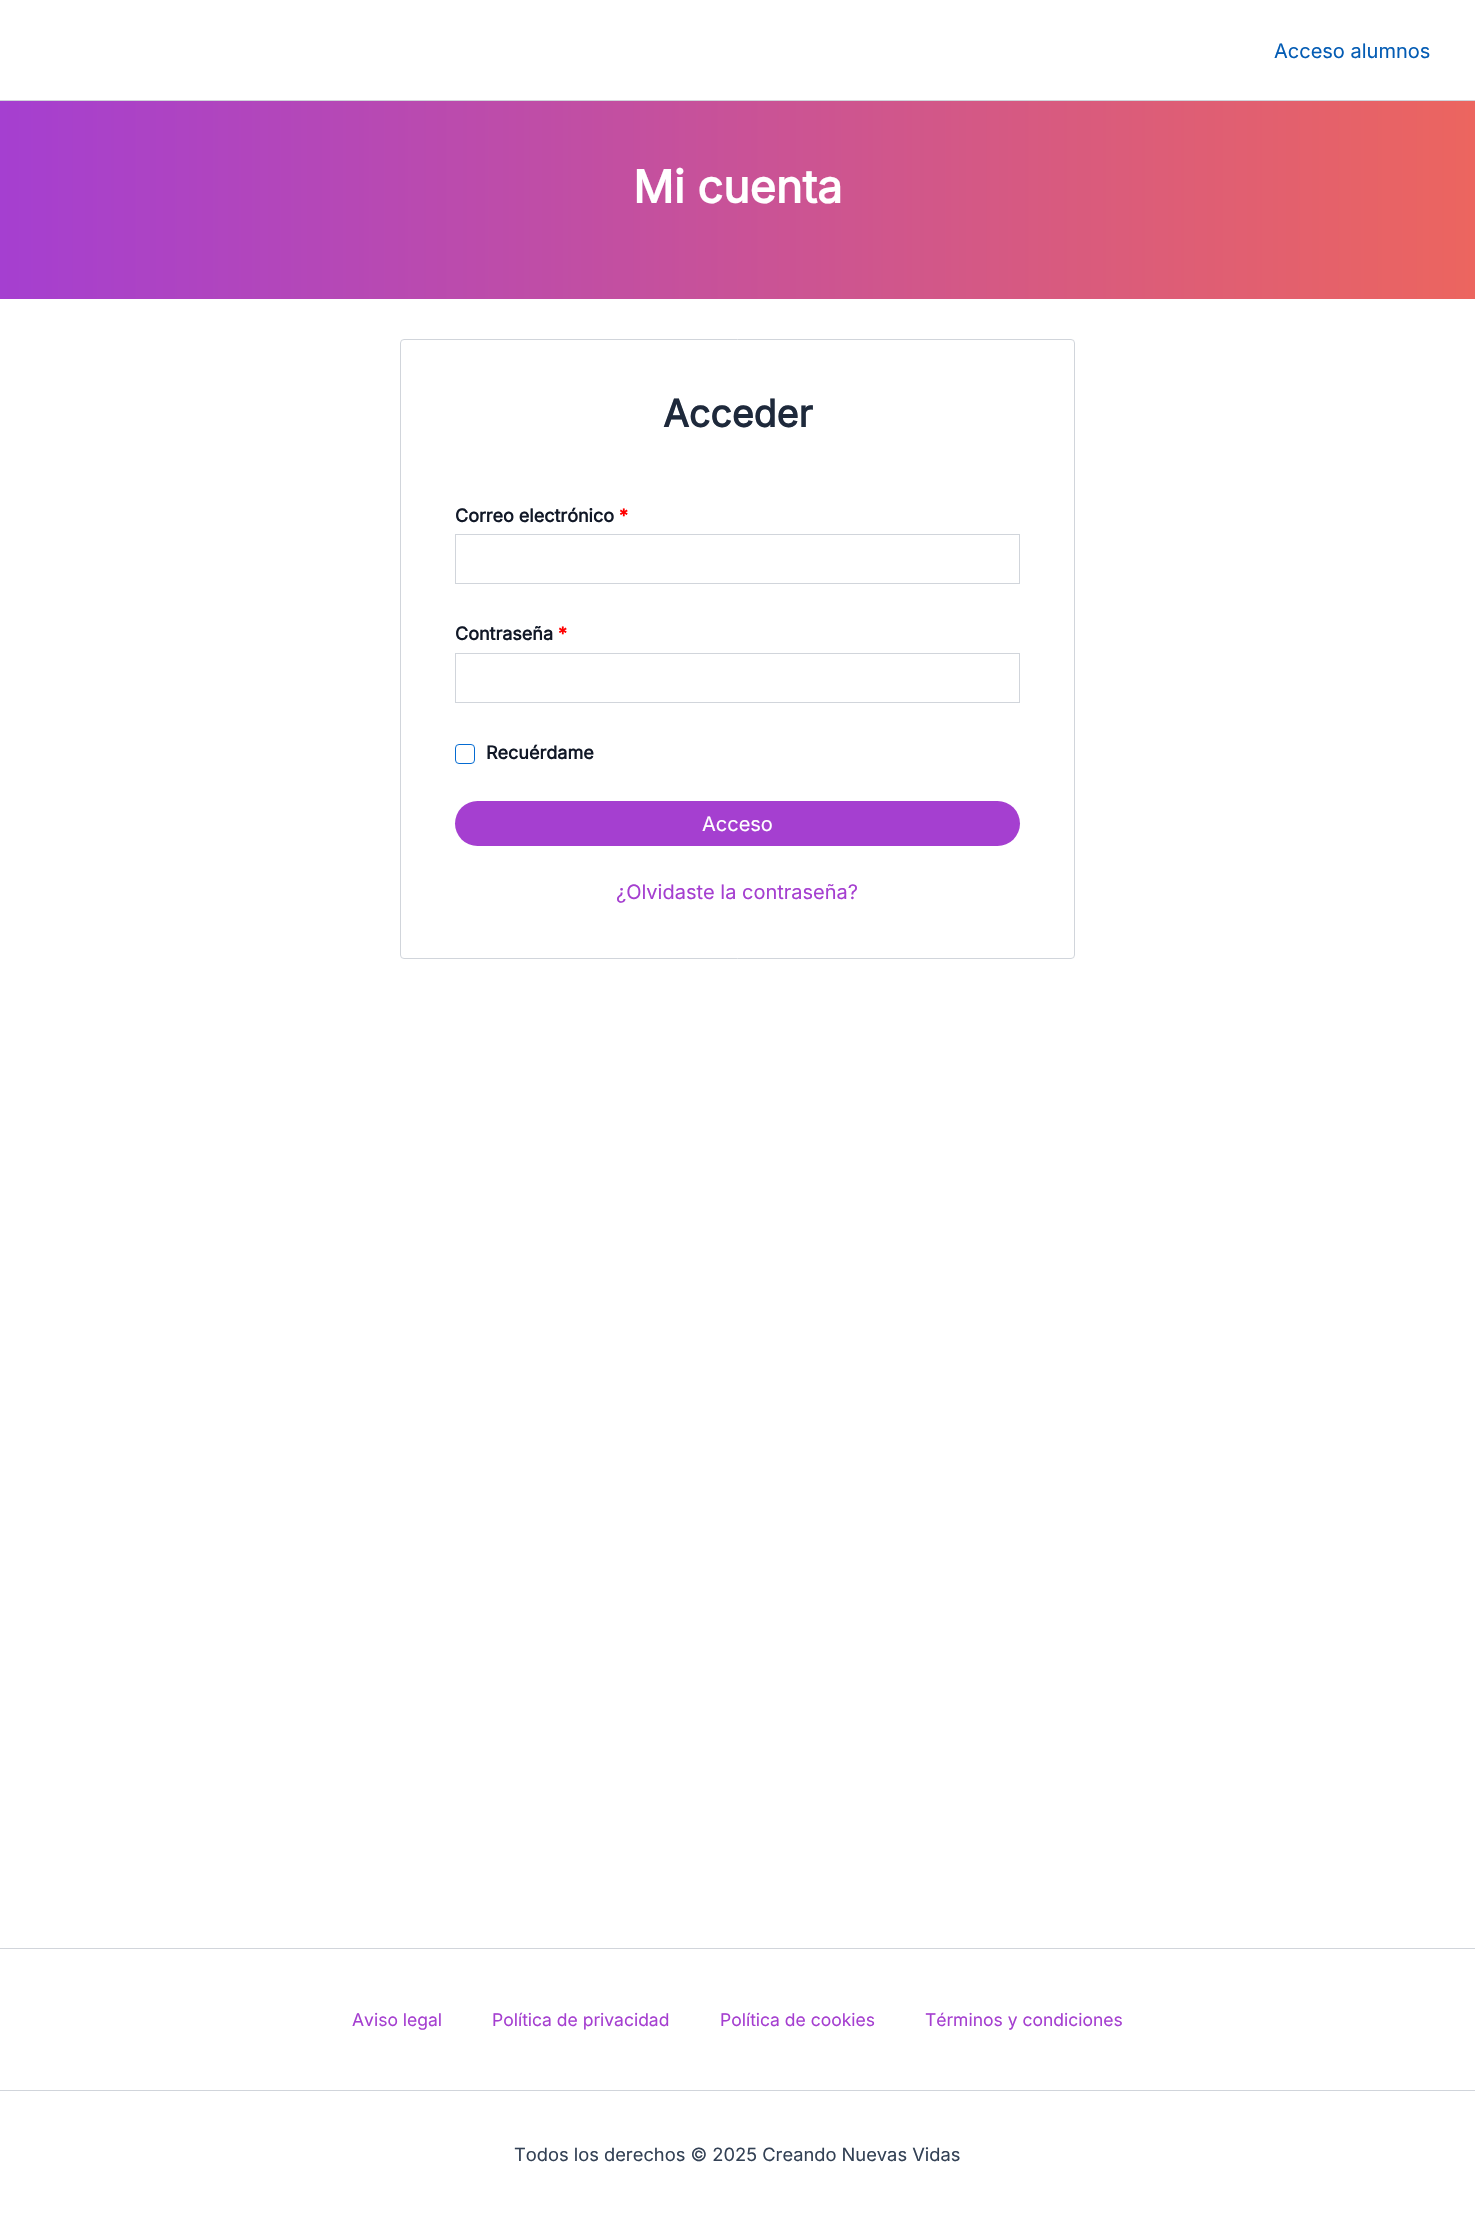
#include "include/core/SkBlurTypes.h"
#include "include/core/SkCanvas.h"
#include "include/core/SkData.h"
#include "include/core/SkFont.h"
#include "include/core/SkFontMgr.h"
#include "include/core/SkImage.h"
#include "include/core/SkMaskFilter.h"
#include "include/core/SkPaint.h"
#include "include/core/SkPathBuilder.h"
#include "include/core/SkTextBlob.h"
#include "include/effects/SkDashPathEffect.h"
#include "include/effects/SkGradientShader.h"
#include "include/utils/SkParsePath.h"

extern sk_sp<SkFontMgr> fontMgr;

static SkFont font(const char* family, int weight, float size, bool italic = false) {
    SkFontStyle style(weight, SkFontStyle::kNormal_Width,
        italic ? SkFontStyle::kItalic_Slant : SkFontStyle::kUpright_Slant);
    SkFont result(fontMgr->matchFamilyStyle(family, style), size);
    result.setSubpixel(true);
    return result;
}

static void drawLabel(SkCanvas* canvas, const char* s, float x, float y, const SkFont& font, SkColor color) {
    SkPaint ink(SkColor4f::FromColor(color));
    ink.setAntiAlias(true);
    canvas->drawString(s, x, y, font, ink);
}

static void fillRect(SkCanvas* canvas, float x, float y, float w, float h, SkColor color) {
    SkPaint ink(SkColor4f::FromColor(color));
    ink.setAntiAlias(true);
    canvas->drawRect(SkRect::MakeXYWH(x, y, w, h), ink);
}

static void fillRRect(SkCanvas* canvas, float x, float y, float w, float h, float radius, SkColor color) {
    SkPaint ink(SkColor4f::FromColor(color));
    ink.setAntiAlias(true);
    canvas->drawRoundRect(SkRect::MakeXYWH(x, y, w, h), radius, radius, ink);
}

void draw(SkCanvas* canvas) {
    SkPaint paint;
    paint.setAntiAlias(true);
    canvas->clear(0xFFFFFFFF);
    fillRect(canvas, 0, 100, 1475, 1, 0xFFD1D5DB);
    SkFont font1 = font("Inter", 400, 20);
    drawLabel(canvas, "Acceso alumnos", 1274, 58, font1, 0xFF045CB4);
    {
        const SkColor colors[] = {0xFFA53FD0, 0xFFEC655F};
        const float stops[] = {0, 1};
        const SkPoint ends[] = {{0, 200}, {1475, 200}};
        paint.setShader(SkGradientShader::MakeLinear(ends, colors, stops, 2, SkTileMode::kClamp));
        paint.setAlpha(255);
    }
    canvas->drawRect(SkRect::MakeXYWH(0, 101, 1475, 198), paint);
    SkFont font2 = font("Inter", 700, 45);
    drawLabel(canvas, "Mi cuenta", 633, 203, font2, 0xFFFFFFFF);
    paint.setStroke(true);
    paint.setStrokeWidth(1);
    paint.setShader(nullptr);
    paint.setColor(0xFFD1D5DB);
    canvas->drawRoundRect(SkRect::MakeXYWH(400.5f, 339.5f, 674, 619), 3.5f, 3.5f, paint);
    SkFont font3 = font("Inter", 700, 37.5f);
    drawLabel(canvas, "Acceder", 663, 427, font3, 0xFF1E293B);
    SkFont font4 = font("Inter", 700, 18);
    drawLabel(canvas, "Correo electrónico", 455, 522, font4, 0xFF111827);
    drawLabel(canvas, "*", 619, 522, font4, 0xFFFF0000);
    canvas->drawRect(SkRect::MakeXYWH(455.5f, 534.5f, 564, 49), paint);
    drawLabel(canvas, "Contraseña", 455, 640, font4, 0xFF111827);
    drawLabel(canvas, "*", 558, 640, font4, 0xFFFF0000);
    canvas->drawRect(SkRect::MakeXYWH(455.5f, 653.5f, 564, 49), paint);
    paint.setColor(0xFF046BD2);
    canvas->drawRoundRect(SkRect::MakeXYWH(455.5f, 744.5f, 19, 19), 3.5f, 3.5f, paint);
    drawLabel(canvas, "Recuérdame", 486, 759, font4, 0xFF111827);
    fillRRect(canvas, 455, 801, 565, 45, 22.5f, 0xFFA53FD0);
    drawLabel(canvas, "Acceso", 702, 831, font1, 0xFFFFFFFF);
    drawLabel(canvas, "¿Olvidaste la contraseña?", 616, 899, font1, 0xFFA53FD0);
    fillRect(canvas, 0, 1948, 1475, 1, 0xFFD1D5DB);
    SkFont font5 = font("Inter", 400, 17.5f);
    drawLabel(canvas, "Aviso legal", 352, 2026, font5, 0xFFA53FD0);
    drawLabel(canvas, "Política de privacidad", 492, 2026, font5, 0xFFA53FD0);
    drawLabel(canvas, "Política de cookies", 720, 2026, font5, 0xFFA53FD0);
    drawLabel(canvas, "Términos y condiciones", 925, 2026, font5, 0xFFA53FD0);
    fillRect(canvas, 0, 2090, 1475, 1, 0xFFD1D5DB);
    SkFont font6 = font("Inter", 400, 18.3f);
    drawLabel(canvas, "Todos los derechos © 2025 Creando Nuevas Vidas", 514, 2161, font6, 0xFF334155);
}
